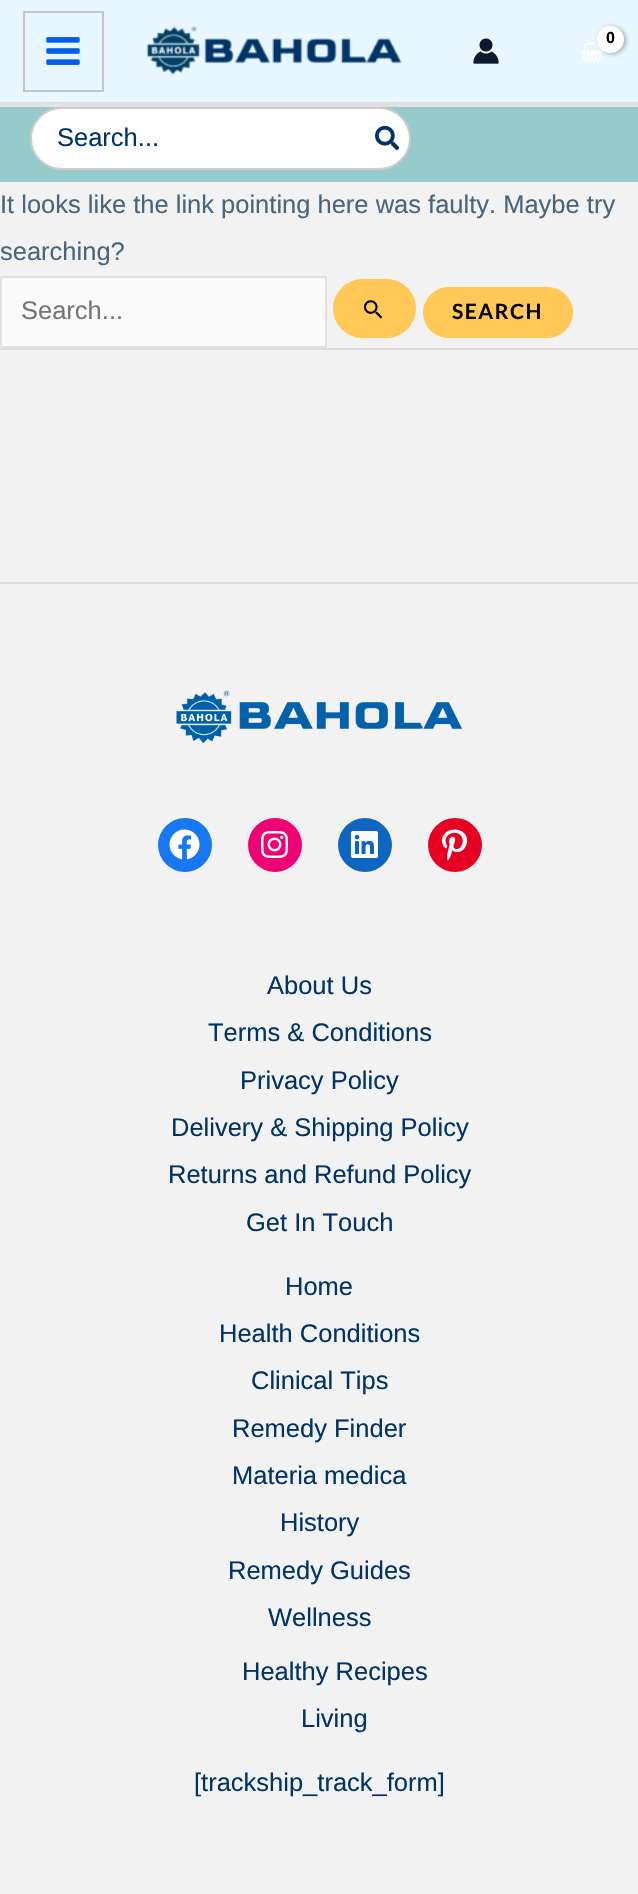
#include "include/core/SkBlurTypes.h"
#include "include/core/SkCanvas.h"
#include "include/core/SkData.h"
#include "include/core/SkFont.h"
#include "include/core/SkFontMgr.h"
#include "include/core/SkImage.h"
#include "include/core/SkMaskFilter.h"
#include "include/core/SkPaint.h"
#include "include/core/SkPathBuilder.h"
#include "include/core/SkTextBlob.h"
#include "include/effects/SkDashPathEffect.h"
#include "include/effects/SkGradientShader.h"
#include "include/utils/SkParsePath.h"

extern sk_sp<SkFontMgr> fontMgr;

static SkFont font(const char* family, int weight, float size, bool italic = false) {
    SkFontStyle style(weight, SkFontStyle::kNormal_Width,
        italic ? SkFontStyle::kItalic_Slant : SkFontStyle::kUpright_Slant);
    SkFont result(fontMgr->matchFamilyStyle(family, style), size);
    result.setSubpixel(true);
    return result;
}

static void drawLabel(SkCanvas* canvas, const char* s, float x, float y, const SkFont& font, SkColor color) {
    SkPaint ink(SkColor4f::FromColor(color));
    ink.setAntiAlias(true);
    canvas->drawString(s, x, y, font, ink);
}

static void drawTracked(SkCanvas* canvas, const char* s, float x, float y, const SkFont& font, const SkPaint& ink, float letter, float word) {
    std::vector<SkGlyphID> glyphs(font.countText(s, strlen(s), SkTextEncoding::kUTF8));
    std::vector<float> xs(glyphs.size());
    font.textToGlyphs(s, strlen(s), SkTextEncoding::kUTF8, glyphs);
    font.getXPos(glyphs, xs, x);
    float extra = 0;
    for (size_t i = 0; i < glyphs.size(); i++) {
        xs[i] += extra;
        extra += letter + word * (glyphs[i] == font.unicharToGlyph(' '));
    }
    canvas->drawTextBlob(SkTextBlob::MakeFromPosHGlyphs(glyphs, xs, y, font), 0, 0, ink);
}

static void fillRect(SkCanvas* canvas, float x, float y, float w, float h, SkColor color) {
    SkPaint ink(SkColor4f::FromColor(color));
    ink.setAntiAlias(true);
    canvas->drawRect(SkRect::MakeXYWH(x, y, w, h), ink);
}

static void fillRRect(SkCanvas* canvas, float x, float y, float w, float h, float radius, SkColor color) {
    SkPaint ink(SkColor4f::FromColor(color));
    ink.setAntiAlias(true);
    canvas->drawRoundRect(SkRect::MakeXYWH(x, y, w, h), radius, radius, ink);
}

static void drawPhoto(SkCanvas* canvas, const char* path, float x, float y, float w, float h) {
    auto image = SkImages::DeferredFromEncodedData(SkData::MakeFromFileName(path));
    canvas->drawImageRect(image, SkRect::MakeXYWH(x, y, w, h), SkSamplingOptions());
}

void draw(SkCanvas* canvas) {
    SkPaint paint;
    paint.setAntiAlias(true);
    canvas->clear(0xFFF2F2F2);
    fillRect(canvas, 0, 0, 638, 102, 0xFFE7F6FF);
    fillRect(canvas, 0, 102, 638, 5, 0xFFE1E1E1);
    paint.setStroke(true);
    paint.setStrokeWidth(2);
    paint.setColor(0xFFC4C4C4);
    canvas->drawRect(SkRect::MakeXYWH(24, 12, 79, 79), paint);
    drawPhoto(canvas, "assets/img1.png", 46, 37, 34, 28);
    drawPhoto(canvas, "assets/img2.png", 146, 26, 256, 49);
    drawPhoto(canvas, "assets/img3.png", 473, 38, 26, 26);
    drawPhoto(canvas, "assets/img4.png", 581, 42, 22, 20);
    paint.setStroke(false);
    paint.setColor(0x4D000000);
    paint.setMaskFilter(SkMaskFilter::MakeBlur(kNormal_SkBlurStyle, 2));
    canvas->drawRoundRect(SkRect::MakeXYWH(599, 27, 27, 27), 13.5f, 13.5f, paint);
    paint.setMaskFilter(nullptr);
    paint.setColor(0xFFFFFFFF);
    canvas->drawCircle(610.5f, 39.5f, 13.5f, paint);
    SkFont font1 = font("Liberation Sans", 700, 16);
    paint.setColor(0xFF000000);
    drawTracked(canvas, "0", 606, 43, font1, paint, -1, 0);
    fillRect(canvas, 0, 107, 638, 75, 0xFF97CBCB);
    paint.setColor(0xFFFFFFFF);
    canvas->drawRoundRect(SkRect::MakeXYWH(31, 108, 379, 61), 30.5f, 30.5f, paint);
    paint.setStroke(true);
    paint.setColor(0xFFCCCCCC);
    canvas->drawRoundRect(SkRect::MakeXYWH(31, 108, 379, 61), 30.5f, 30.5f, paint);
    SkFont font2 = font("Liberation Sans", 400, 25.5f);
    drawLabel(canvas, "Search...", 57, 146, font2, 0xFF003366);
    drawPhoto(canvas, "assets/img5.png", 375, 125, 24, 26);
    drawLabel(canvas, "It looks like the link pointing here was faulty. Maybe try", 0, 213, font2, 0xFF4A647A);
    drawLabel(canvas, "searching?", 0, 260, font2, 0xFF4A647A);
    paint.setStroke(false);
    paint.setColor(0xFFFAFAFA);
    canvas->drawRoundRect(SkRect::MakeXYWH(1, 277, 325, 70), 2, 2, paint);
    paint.setStroke(true);
    paint.setColor(0xFFE1E1E1);
    canvas->drawRoundRect(SkRect::MakeXYWH(1, 277, 325, 70), 2, 2, paint);
    drawLabel(canvas, "Search...", 21, 319, font2, 0xFF757575);
    fillRRect(canvas, 333, 279, 83, 59, 29.5f, 0xFFFFC857);
    drawPhoto(canvas, "assets/img6.png", 363, 300, 20, 19);
    fillRRect(canvas, 423, 287, 150, 51, 25.5f, 0xFFFFC857);
    SkFont font3 = font("Lato", 700, 21);
    paint.setStroke(false);
    paint.setColor(0xFF000000);
    drawTracked(canvas, "SEARCH", 452, 319, font3, paint, 1.5f, 0);
    fillRect(canvas, 0, 348, 638, 2, 0xFFDDDDDD);
    fillRect(canvas, 0, 582, 638, 2, 0xFFDDDDDD);
    drawPhoto(canvas, "assets/img7.png", 176, 690, 287, 54);
    paint.setColor(0xFF1778F2);
    canvas->drawCircle(185, 845, 27, paint);
    drawPhoto(canvas, "assets/img8.png", 169, 829, 31, 31);
    paint.setColor(0xFFF00075);
    canvas->drawCircle(275, 845, 27, paint);
    drawPhoto(canvas, "assets/img9.png", 261, 831, 27, 27);
    paint.setColor(0xFF0D66C2);
    canvas->drawCircle(365, 845, 27, paint);
    drawPhoto(canvas, "assets/img10.png", 351, 831, 27, 27);
    paint.setColor(0xFFE60122);
    canvas->drawCircle(455, 845, 27, paint);
    drawPhoto(canvas, "assets/img11.png", 441, 829, 27, 32);
    drawLabel(canvas, "About Us", 267, 994, font2, 0xFF003366);
    drawLabel(canvas, "Terms & Conditions", 208, 1041, font2, 0xFF003366);
    drawLabel(canvas, "Privacy Policy", 240, 1089, font2, 0xFF003366);
    drawLabel(canvas, "Delivery & Shipping Policy", 171, 1136, font2, 0xFF003366);
    drawLabel(canvas, "Returns and Refund Policy", 168, 1183, font2, 0xFF003366);
    drawLabel(canvas, "Get In Touch", 246, 1231, font2, 0xFF003366);
    drawLabel(canvas, "Home", 285, 1295, font2, 0xFF003366);
    drawLabel(canvas, "Health Conditions", 219, 1342, font2, 0xFF003366);
    drawLabel(canvas, "Clinical Tips", 251, 1389, font2, 0xFF003366);
    drawLabel(canvas, "Remedy Finder", 232, 1437, font2, 0xFF003366);
    drawLabel(canvas, "Materia medica", 232, 1484, font2, 0xFF003366);
    drawLabel(canvas, "History", 280, 1531, font2, 0xFF003366);
    drawLabel(canvas, "Remedy Guides", 228, 1579, font2, 0xFF003366);
    drawLabel(canvas, "Wellness", 268, 1626, font2, 0xFF003366);
    drawLabel(canvas, "Healthy Recipes", 242, 1680, font2, 0xFF003366);
    drawLabel(canvas, "Living", 301, 1727, font2, 0xFF003366);
    drawLabel(canvas, "[trackship_track_form]", 194, 1791, font2, 0xFF003366);
}
